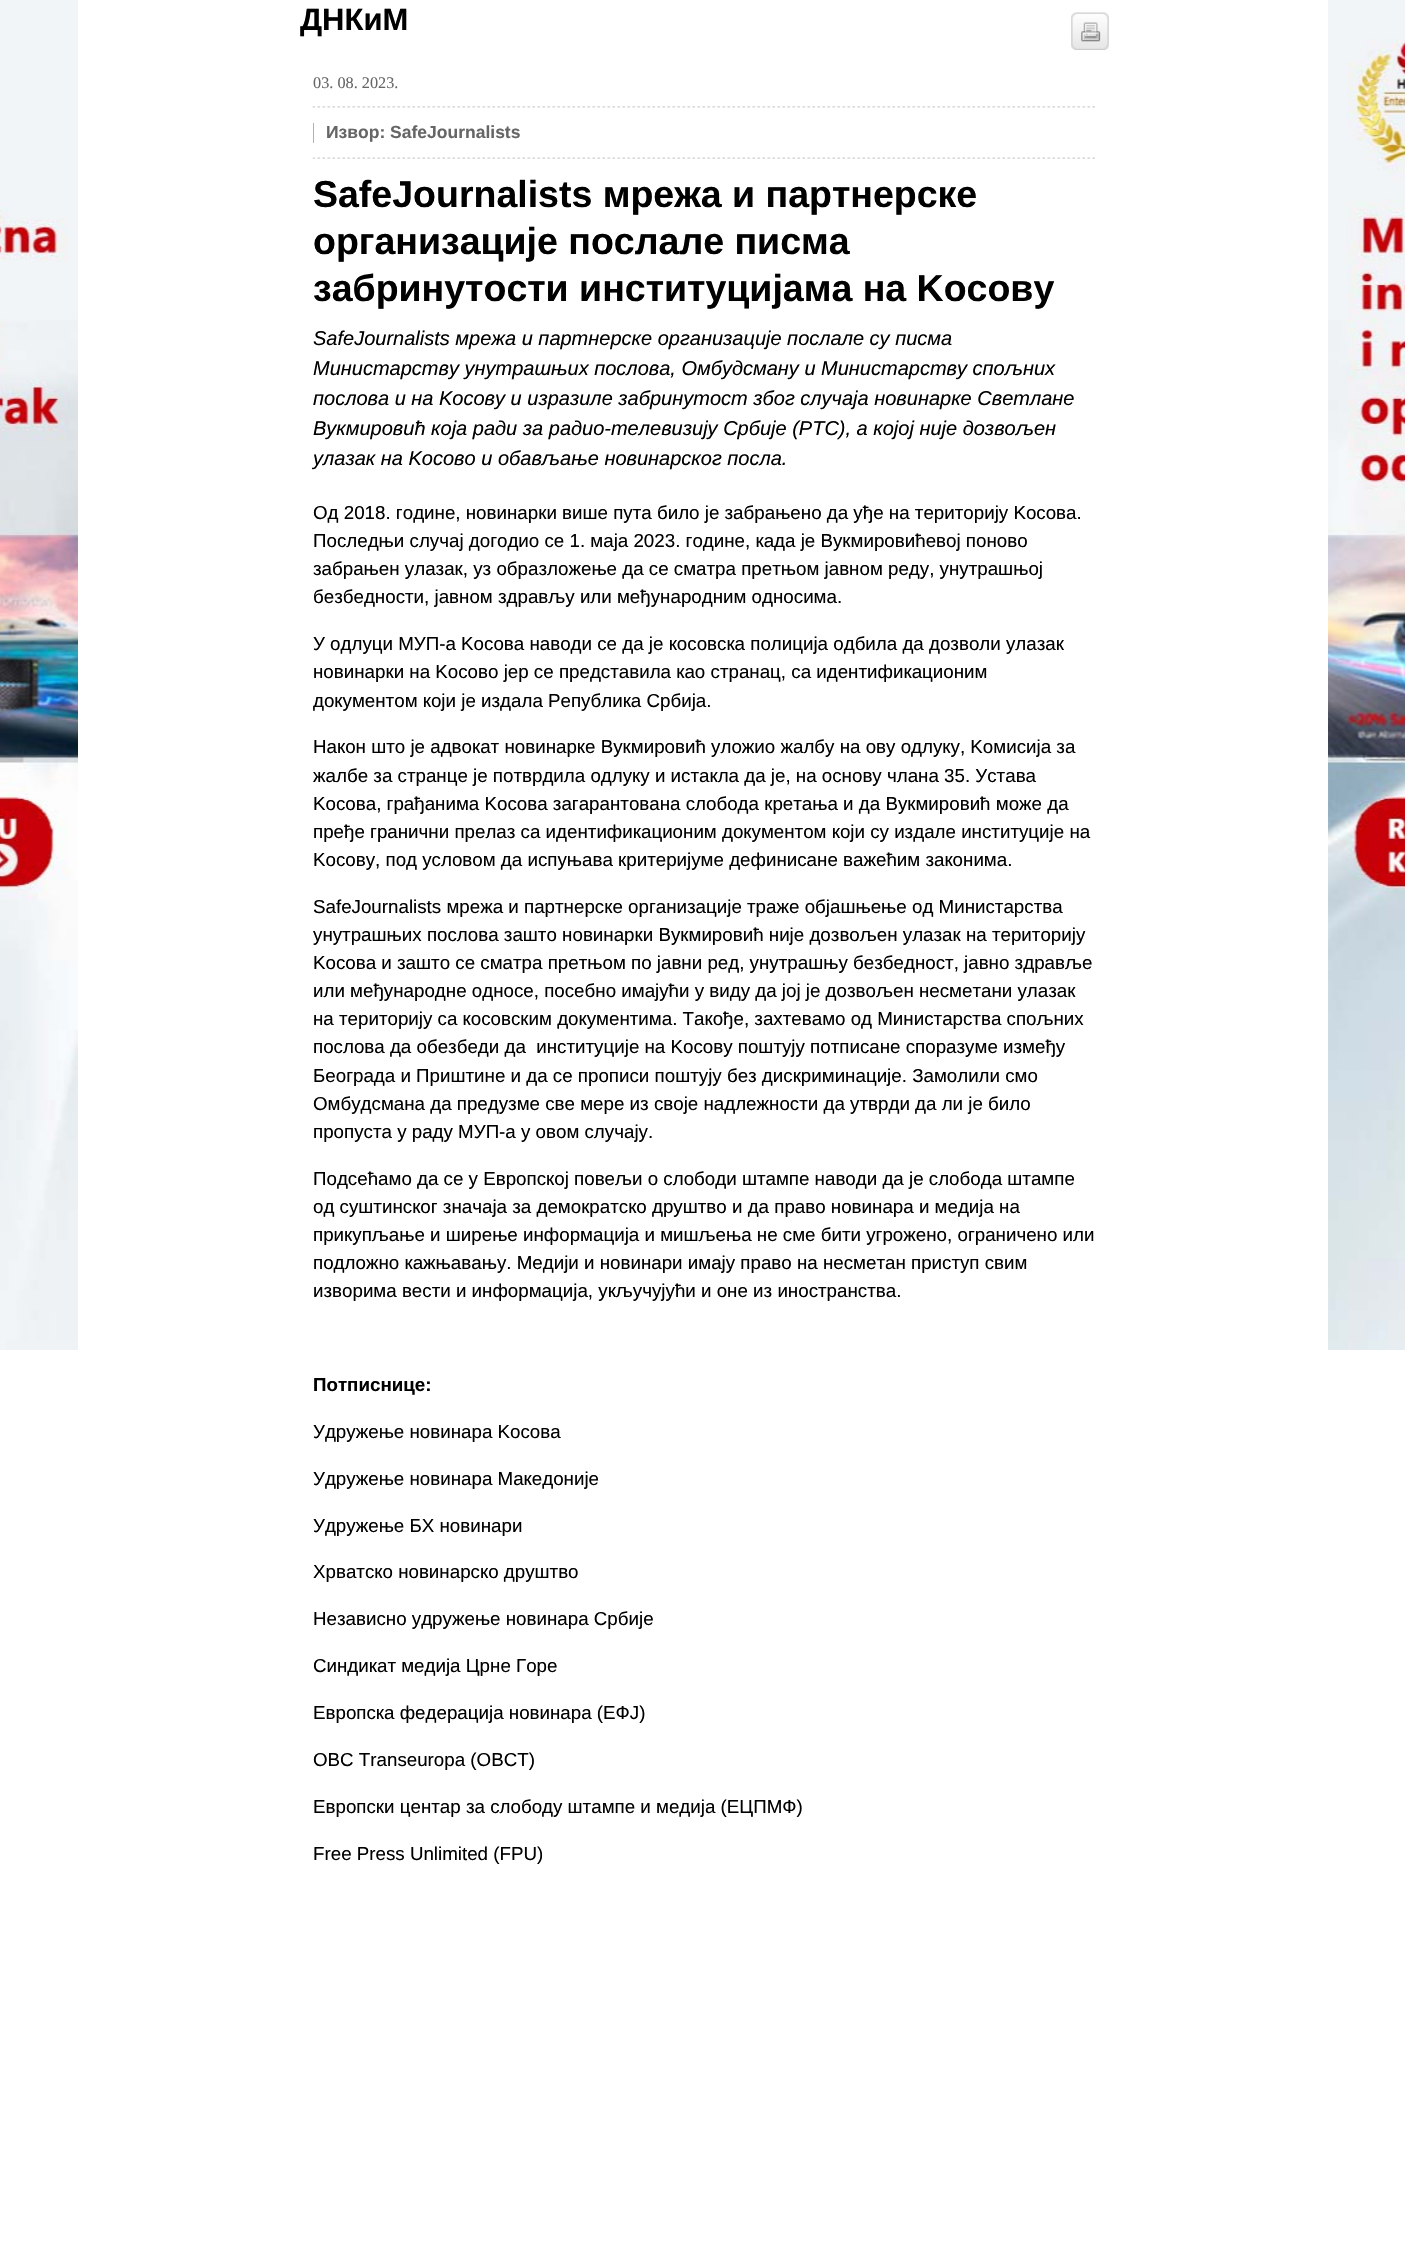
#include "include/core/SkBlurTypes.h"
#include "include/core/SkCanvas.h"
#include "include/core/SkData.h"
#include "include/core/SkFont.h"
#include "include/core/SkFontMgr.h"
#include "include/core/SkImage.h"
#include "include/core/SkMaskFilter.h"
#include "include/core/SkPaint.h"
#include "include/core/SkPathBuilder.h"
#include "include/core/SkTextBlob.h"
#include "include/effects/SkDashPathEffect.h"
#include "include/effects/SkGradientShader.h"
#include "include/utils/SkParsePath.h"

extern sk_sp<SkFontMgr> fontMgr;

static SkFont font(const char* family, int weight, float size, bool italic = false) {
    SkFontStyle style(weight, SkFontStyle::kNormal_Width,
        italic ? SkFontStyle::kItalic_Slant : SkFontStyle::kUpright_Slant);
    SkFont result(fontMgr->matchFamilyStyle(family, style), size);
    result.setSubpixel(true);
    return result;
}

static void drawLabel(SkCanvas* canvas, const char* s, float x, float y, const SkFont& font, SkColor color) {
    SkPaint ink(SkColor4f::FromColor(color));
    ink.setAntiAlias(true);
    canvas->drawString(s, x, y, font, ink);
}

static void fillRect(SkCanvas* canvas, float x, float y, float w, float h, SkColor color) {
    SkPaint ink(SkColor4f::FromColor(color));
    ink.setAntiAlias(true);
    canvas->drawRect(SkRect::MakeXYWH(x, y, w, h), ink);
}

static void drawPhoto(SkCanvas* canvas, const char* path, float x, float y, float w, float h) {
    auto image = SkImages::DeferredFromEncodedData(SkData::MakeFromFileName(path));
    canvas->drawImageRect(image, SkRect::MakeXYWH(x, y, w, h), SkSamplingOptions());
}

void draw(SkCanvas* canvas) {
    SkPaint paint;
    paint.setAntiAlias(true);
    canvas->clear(0xFFFFFFFF);
    drawPhoto(canvas, "assets/img1.png", 0, 0, 78, 1350);
    SkFont font1 = font("Liberation Sans", 700, 31);
    drawLabel(canvas, "ДНКиМ", 300, 30, font1, 0xFF000000);
    drawPhoto(canvas, "assets/img2.png", 1071, 12, 38, 38);
    drawPhoto(canvas, "assets/img3.png", 312, 106, 783, 2);
    SkFont font2 = font("Liberation Serif", 400, 16.25f);
    drawLabel(canvas, "03. 08. 2023.", 313, 88, font2, 0xFF666666);
    drawPhoto(canvas, "assets/img4.png", 312, 157, 783, 2);
    SkFont font3 = font("Liberation Sans", 700, 17.5f);
    drawLabel(canvas, "Извор: SafeJournalists", 326, 138, font3, 0xFF666666);
    fillRect(canvas, 313, 123, 1, 20, 0xFFA7B2C3);
    SkFont font4 = font("Liberation Sans", 700, 37.5f);
    drawLabel(canvas, "SafeJournalists мрежа и партнерске", 313, 207, font4, 0xFF000000);
    drawLabel(canvas, "организације послале писма", 313, 254, font4, 0xFF000000);
    drawLabel(canvas, "забринутости институцијама на Kосову", 313, 301, font4, 0xFF000000);
    SkFont font5 = font("Liberation Sans", 400, 20, true);
    drawLabel(canvas, "SafeJournalists мрежа и партнерске организације послале су писма", 313, 345, font5, 0xFF000000);
    drawLabel(canvas, "Министарству унутрашњих послова, Омбудсману и Министарству спољних", 313, 375, font5, 0xFF000000);
    drawLabel(canvas, "послова и на Kосову и изразиле забринутост због случаја новинарке Светлане", 313, 405, font5, 0xFF000000);
    drawLabel(canvas, "Вукмировић која ради за радио-телевизију Србије (РТС), а којој није дозвољен", 313, 435, font5, 0xFF000000);
    drawLabel(canvas, "улазак на Kосово и обављање новинарског посла.", 313, 465, font5, 0xFF000000);
    SkFont font6 = font("Liberation Sans", 400, 18.75f);
    drawLabel(canvas, "Од 2018. године, новинарки више пута било је забрањено да уђе на територију Kосова.", 313, 519, font6, 0xFF000000);
    drawLabel(canvas, "Последњи случај догодио се 1. маја 2023. године, када је Вукмировићевој поново", 313, 547, font6, 0xFF000000);
    drawLabel(canvas, "забрањен улазак, уз образложење да се сматра претњом јавном реду, унутрашњој", 313, 575, font6, 0xFF000000);
    drawLabel(canvas, "безбедности, јавном здрављу или међународним односима.", 313, 603, font6, 0xFF000000);
    drawLabel(canvas, "У одлуци МУП-а Kосова наводи се да је косовска полиција одбила да дозволи улазак", 313, 650, font6, 0xFF000000);
    drawLabel(canvas, "новинарки на Kосово јер се представила као странац, са идентификационим", 313, 678, font6, 0xFF000000);
    drawLabel(canvas, "документом који је издала Република Србија.", 313, 707, font6, 0xFF000000);
    drawLabel(canvas, "Након што је адвокат новинарке Вукмировић уложио жалбу на ову одлуку, Kомисија за", 313, 753, font6, 0xFF000000);
    drawLabel(canvas, "жалбе за странце је потврдила одлуку и истакла да је, на основу члана 35. Устава", 313, 782, font6, 0xFF000000);
    drawLabel(canvas, "Kосова, грађанима Kосова загарантована слобода кретања и да Вукмировић може да", 313, 810, font6, 0xFF000000);
    drawLabel(canvas, "пређе гранични прелаз са идентификационим документом који су издале институције на", 313, 838, font6, 0xFF000000);
    drawLabel(canvas, "Kосову, под условом да испуњава критеријуме дефинисане важећим законима.", 313, 866, font6, 0xFF000000);
    drawLabel(canvas, "SafeJournalists мрежа и партнерске организације траже објашњење од Министарства", 313, 913, font6, 0xFF000000);
    drawLabel(canvas, "унутрашњих послова зашто новинарки Вукмировић није дозвољен улазак на територију", 313, 941, font6, 0xFF000000);
    drawLabel(canvas, "Kосова и зашто се сматра претњом по јавни ред, унутрашњу безбедност, јавно здравље", 313, 969, font6, 0xFF000000);
    drawLabel(canvas, "или међународне односе, посебно имајући у виду да јој је дозвољен несметани улазак", 313, 997, font6, 0xFF000000);
    drawLabel(canvas, "на територију са косовским документима. Такође, захтевамо од Министарства спољних", 313, 1025, font6, 0xFF000000);
    drawLabel(canvas, "послова да обезбеди да  институције на Kосову поштују потписане споразуме између", 313, 1053, font6, 0xFF000000);
    drawLabel(canvas, "Београда и Приштине и да се прописи поштују без дискриминације. Замолили смо", 313, 1082, font6, 0xFF000000);
    drawLabel(canvas, "Омбудсмана да предузме све мере из своје надлежности да утврди да ли је било", 313, 1110, font6, 0xFF000000);
    drawLabel(canvas, "пропуста у раду МУП-а у овом случају.", 313, 1138, font6, 0xFF000000);
    drawLabel(canvas, "Подсећамо да се у Европској повељи о слободи штампе наводи да је слобода штампе", 313, 1185, font6, 0xFF000000);
    drawLabel(canvas, "од суштинског значаја за демократско друштво и да право новинара и медија на", 313, 1213, font6, 0xFF000000);
    drawLabel(canvas, "прикупљање и ширење информација и мишљења не сме бити угрожено, ограничено или", 313, 1241, font6, 0xFF000000);
    drawLabel(canvas, "подложно кажњавању. Медији и новинари имају право на несметан приступ свим", 313, 1269, font6, 0xFF000000);
    drawLabel(canvas, "изворима вести и информација, укључујући и оне из иностранства.", 313, 1297, font6, 0xFF000000);
    SkFont font7 = font("Liberation Sans", 700, 18.75f);
    drawLabel(canvas, "Потписнице:", 313, 1391, font7, 0xFF000000);
    drawLabel(canvas, "Удружење новинара Kосова", 313, 1438, font6, 0xFF000000);
    drawLabel(canvas, "Удружење новинара Македоније", 313, 1485, font6, 0xFF000000);
    drawLabel(canvas, "Удружење БХ новинари", 313, 1532, font6, 0xFF000000);
    drawLabel(canvas, "Хрватско новинарско друштво", 313, 1578, font6, 0xFF000000);
    drawLabel(canvas, "Независно удружење новинара Србије", 313, 1625, font6, 0xFF000000);
    drawLabel(canvas, "Синдикат медија Црне Горе", 313, 1672, font6, 0xFF000000);
    drawLabel(canvas, "Европска федерација новинара (ЕФЈ)", 313, 1719, font6, 0xFF000000);
    drawLabel(canvas, "OBC Transeuropa (OBCT)", 313, 1766, font6, 0xFF000000);
    drawLabel(canvas, "Европски центар за слободу штампе и медија (ЕЦПМФ)", 313, 1813, font6, 0xFF000000);
    drawLabel(canvas, "Free Press Unlimited (FPU)", 313, 1860, font6, 0xFF000000);
    drawPhoto(canvas, "assets/img5.png", 1328, 0, 77, 1350);
}
